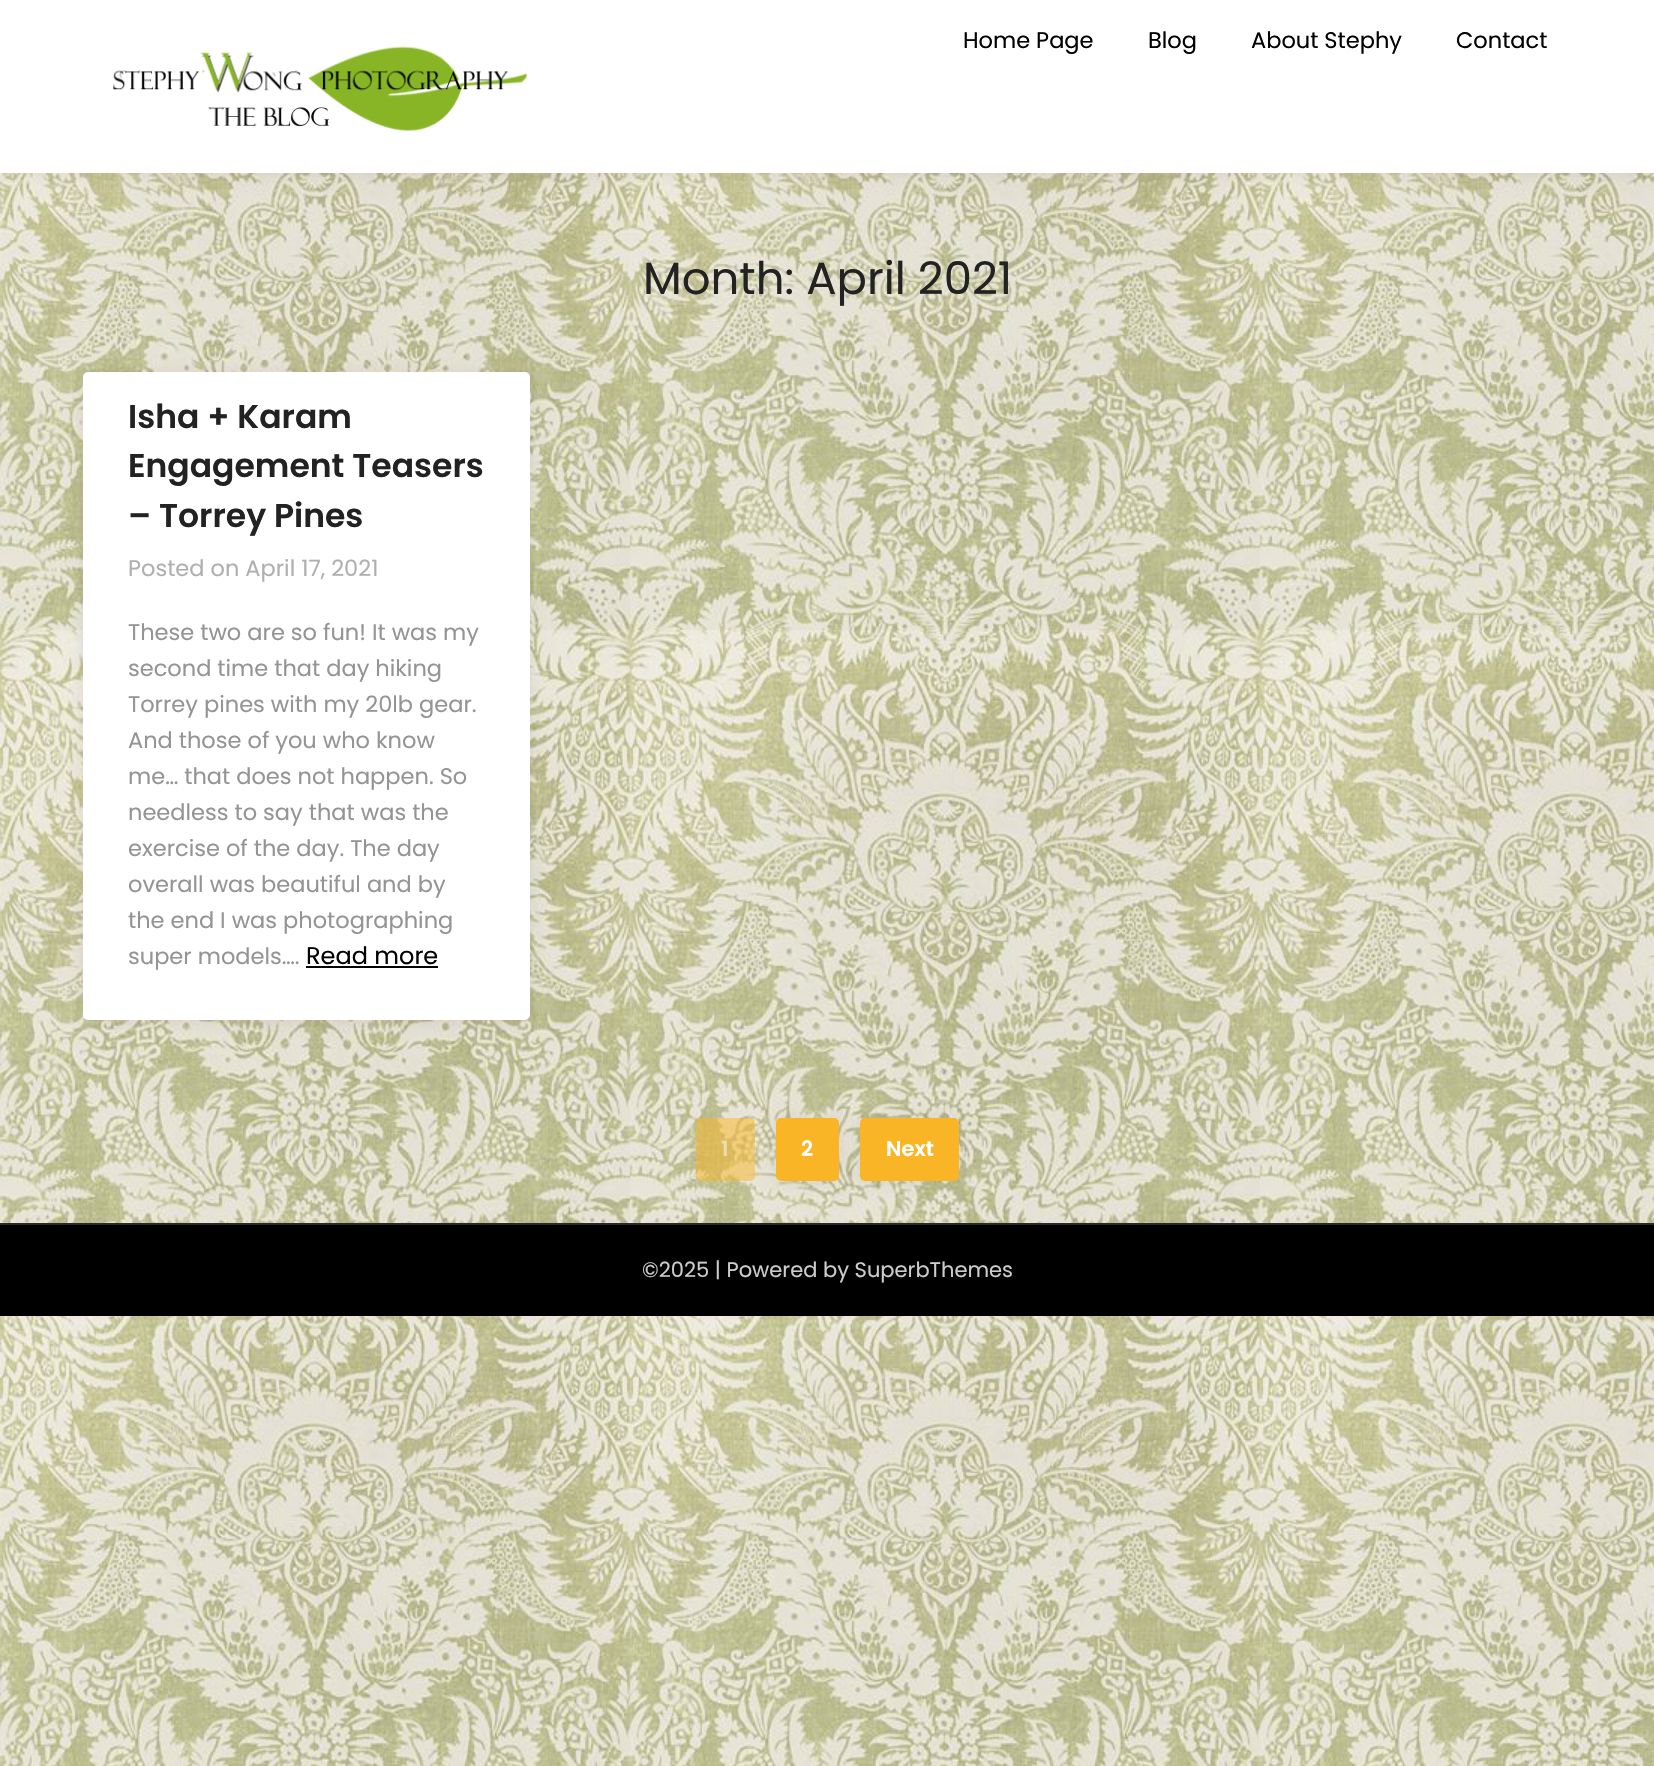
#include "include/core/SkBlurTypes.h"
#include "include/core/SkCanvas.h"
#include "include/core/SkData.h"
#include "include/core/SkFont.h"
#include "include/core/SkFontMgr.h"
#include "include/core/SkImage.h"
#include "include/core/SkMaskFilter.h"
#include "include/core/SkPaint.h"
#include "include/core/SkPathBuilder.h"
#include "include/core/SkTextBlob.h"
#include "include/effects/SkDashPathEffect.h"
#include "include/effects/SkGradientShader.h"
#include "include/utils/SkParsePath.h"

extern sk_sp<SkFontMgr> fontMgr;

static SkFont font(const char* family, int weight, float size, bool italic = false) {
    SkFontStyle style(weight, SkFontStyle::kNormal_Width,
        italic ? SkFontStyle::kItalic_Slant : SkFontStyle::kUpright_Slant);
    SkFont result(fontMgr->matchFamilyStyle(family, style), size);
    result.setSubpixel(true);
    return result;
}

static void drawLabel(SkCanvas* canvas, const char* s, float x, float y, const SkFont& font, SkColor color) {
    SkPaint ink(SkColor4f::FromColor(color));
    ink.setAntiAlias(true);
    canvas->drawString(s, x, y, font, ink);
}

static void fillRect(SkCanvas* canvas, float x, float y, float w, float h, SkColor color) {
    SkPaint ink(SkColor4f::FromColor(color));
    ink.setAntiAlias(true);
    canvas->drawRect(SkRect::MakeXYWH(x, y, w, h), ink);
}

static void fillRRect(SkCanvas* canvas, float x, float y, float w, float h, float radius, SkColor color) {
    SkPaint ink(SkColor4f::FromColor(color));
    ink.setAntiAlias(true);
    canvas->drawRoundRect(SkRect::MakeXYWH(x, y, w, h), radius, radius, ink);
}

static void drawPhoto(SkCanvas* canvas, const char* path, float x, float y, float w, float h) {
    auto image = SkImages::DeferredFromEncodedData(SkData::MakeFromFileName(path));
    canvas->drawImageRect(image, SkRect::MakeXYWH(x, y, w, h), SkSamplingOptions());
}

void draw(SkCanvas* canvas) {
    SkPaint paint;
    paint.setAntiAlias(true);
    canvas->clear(0xFFFFFFFF);
    drawPhoto(canvas, "assets/img1.png", 0, 173, 1654, 1593);
    paint.setColor(0x14000000);
    paint.setMaskFilter(SkMaskFilter::MakeBlur(kNormal_SkBlurStyle, 7));
    canvas->drawRect(SkRect::MakeXYWH(0, 2, 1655, 172), paint);
    paint.setMaskFilter(nullptr);
    fillRect(canvas, 0, 0, 1654, 173, 0xFFFFFFFF);
    SkFont font1 = font("Poppins", 400, 22.5f);
    drawLabel(canvas, "Home Page", 963, 48, font1, 0xFF000000);
    drawLabel(canvas, "Blog", 1148, 48, font1, 0xFF000000);
    drawLabel(canvas, "About Stephy", 1251, 48, font1, 0xFF000000);
    drawLabel(canvas, "Contact", 1456, 48, font1, 0xFF000000);
    drawPhoto(canvas, "assets/img2.png", 113, 46, 415, 85);
    SkFont font2 = font("Poppins", 400, 45);
    drawLabel(canvas, "Month: April 2021", 643, 294, font2, 0xFF222222);
    paint.setMaskFilter(SkMaskFilter::MakeBlur(kNormal_SkBlurStyle, 7));
    canvas->drawRoundRect(SkRect::MakeXYWH(83, 374, 447, 648), 5, 5, paint);
    paint.setMaskFilter(nullptr);
    fillRRect(canvas, 83, 372, 447, 648, 5, 0xFFFFFFFF);
    SkFont font3 = font("Poppins", 600, 33);
    drawLabel(canvas, "Isha + Karam", 128, 428, font3, 0xFF222222);
    drawLabel(canvas, "Engagement Teasers", 128, 477, font3, 0xFF222222);
    drawLabel(canvas, "– Torrey Pines", 128, 527, font3, 0xFF222222);
    drawLabel(canvas, "Posted on April 17, 2021", 128, 576, font1, 0xFFAFAFAF);
    drawLabel(canvas, "These two are so fun! It was my", 128, 640, font1, 0xFF949494);
    drawLabel(canvas, "second time that day hiking", 128, 676, font1, 0xFF949494);
    drawLabel(canvas, "Torrey pines with my 20lb gear.", 128, 712, font1, 0xFF949494);
    drawLabel(canvas, "And those of you who know", 128, 748, font1, 0xFF949494);
    drawLabel(canvas, "me… that does not happen. So", 128, 784, font1, 0xFF949494);
    drawLabel(canvas, "needless to say that was the", 128, 820, font1, 0xFF949494);
    drawLabel(canvas, "exercise of the day. The day", 128, 856, font1, 0xFF949494);
    drawLabel(canvas, "overall was beautiful and by", 128, 892, font1, 0xFF949494);
    drawLabel(canvas, "the end I was photographing", 128, 928, font1, 0xFF949494);
    drawLabel(canvas, "super models….", 128, 964, font1, 0xFF949494);
    SkFont font4 = font("Poppins", 400, 24);
    drawLabel(canvas, "Read more", 306, 964, font4, 0xFF000000);
    fillRect(canvas, 306, 966, 132, 2, 0xFF000000);
    paint.setMaskFilter(SkMaskFilter::MakeBlur(kNormal_SkBlurStyle, 7));
    canvas->drawRoundRect(SkRect::MakeXYWH(776, 1119, 63, 63), 5, 5, paint);
    paint.setMaskFilter(nullptr);
    fillRRect(canvas, 696, 1118, 59, 63, 5, 0x80FAB526);
    SkFont font5 = font("Poppins", 600, 21);
    drawLabel(canvas, "1", 721, 1156, font5, 0xFFEDDCAD);
    fillRRect(canvas, 776, 1118, 63, 63, 5, 0xFFFAB526);
    drawLabel(canvas, "2", 801, 1156, font5, 0xFFFFFFFF);
    paint.setMaskFilter(SkMaskFilter::MakeBlur(kNormal_SkBlurStyle, 7));
    canvas->drawRoundRect(SkRect::MakeXYWH(860, 1119, 99, 63), 5, 5, paint);
    paint.setMaskFilter(nullptr);
    fillRRect(canvas, 860, 1118, 99, 63, 5, 0xFFFAB526);
    drawLabel(canvas, "Next", 886, 1156, font5, 0xFFFFFFFF);
    fillRect(canvas, 0, 1225, 1654, 91, 0xFF000000);
    fillRect(canvas, 0, 1223, 1654, 2, 0xFF292929);
    SkFont font6 = font("Poppins", 400, 21);
    drawLabel(canvas, "©2025 | Powered by SuperbThemes", 642, 1277, font6, 0xFFCCCCCC);
}
